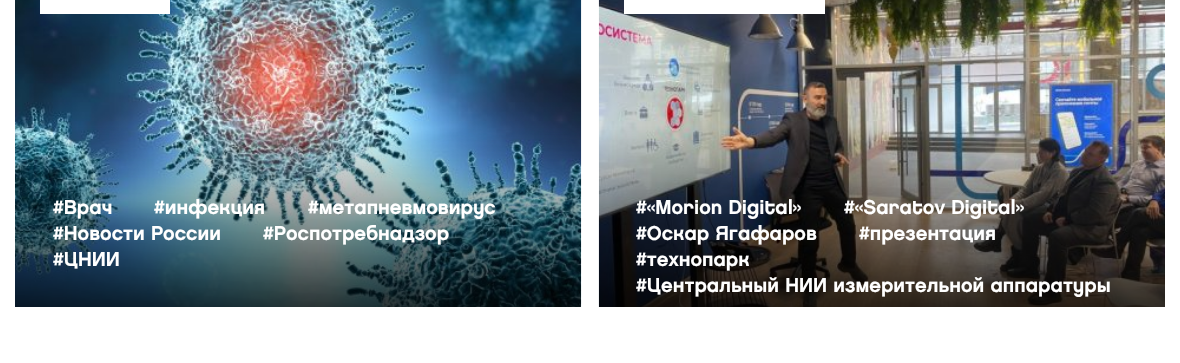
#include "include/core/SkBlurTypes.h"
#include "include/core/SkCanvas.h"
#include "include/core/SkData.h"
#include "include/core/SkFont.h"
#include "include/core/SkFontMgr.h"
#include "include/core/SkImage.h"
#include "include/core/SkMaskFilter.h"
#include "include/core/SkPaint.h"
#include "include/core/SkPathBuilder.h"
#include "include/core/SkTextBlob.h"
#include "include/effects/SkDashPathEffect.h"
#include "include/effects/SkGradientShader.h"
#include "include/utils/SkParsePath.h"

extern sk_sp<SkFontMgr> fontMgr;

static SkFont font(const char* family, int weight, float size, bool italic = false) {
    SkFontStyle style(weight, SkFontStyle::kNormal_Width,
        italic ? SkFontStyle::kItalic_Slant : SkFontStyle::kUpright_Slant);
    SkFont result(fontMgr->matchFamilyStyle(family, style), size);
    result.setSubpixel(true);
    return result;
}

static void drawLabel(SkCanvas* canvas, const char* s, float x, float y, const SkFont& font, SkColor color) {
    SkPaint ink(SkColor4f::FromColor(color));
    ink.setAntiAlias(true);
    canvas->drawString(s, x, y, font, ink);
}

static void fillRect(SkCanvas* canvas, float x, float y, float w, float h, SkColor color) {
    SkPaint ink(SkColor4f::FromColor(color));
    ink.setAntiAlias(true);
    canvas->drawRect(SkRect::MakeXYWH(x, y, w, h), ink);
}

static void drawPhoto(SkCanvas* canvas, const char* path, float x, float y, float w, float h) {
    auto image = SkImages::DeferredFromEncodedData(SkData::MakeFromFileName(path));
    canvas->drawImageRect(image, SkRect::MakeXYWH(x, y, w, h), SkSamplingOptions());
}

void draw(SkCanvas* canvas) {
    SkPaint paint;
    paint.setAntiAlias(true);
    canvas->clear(0xFFFFFFFF);
    drawPhoto(canvas, "assets/img1.png", 15, 0, 567, 307);
    fillRect(canvas, 40, 0, 130, 14, 0xFFFFFFFF);
    SkFont font1 = font("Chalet", 700, 20);
    drawLabel(canvas, "#Врач", 53, 214, font1, 0xFFFFFFFF);
    drawLabel(canvas, "#инфекция", 154, 214, font1, 0xFFFFFFFF);
    drawLabel(canvas, "#метапневмовирус", 308, 214, font1, 0xFFFFFFFF);
    drawLabel(canvas, "#Новости России", 53, 240, font1, 0xFFFFFFFF);
    drawLabel(canvas, "#Роспотребнадзор", 263, 240, font1, 0xFFFFFFFF);
    drawLabel(canvas, "#ЦНИИ", 53, 266, font1, 0xFFFFFFFF);
    drawPhoto(canvas, "assets/img2.png", 598, 0, 567, 307);
    fillRect(canvas, 624, 0, 201, 14, 0xFFFFFFFF);
    drawLabel(canvas, "#«Morion Digital»", 636, 214, font1, 0xFFFFFFFF);
    drawLabel(canvas, "#«Saratov Digital»", 844, 214, font1, 0xFFFFFFFF);
    drawLabel(canvas, "#Оскар Ягафаров", 636, 240, font1, 0xFFFFFFFF);
    drawLabel(canvas, "#презентация", 859, 240, font1, 0xFFFFFFFF);
    drawLabel(canvas, "#технопарк", 636, 266, font1, 0xFFFFFFFF);
    drawLabel(canvas, "#Центральный НИИ измерительной аппаратуры", 636, 292, font1, 0xFFFFFFFF);
}
